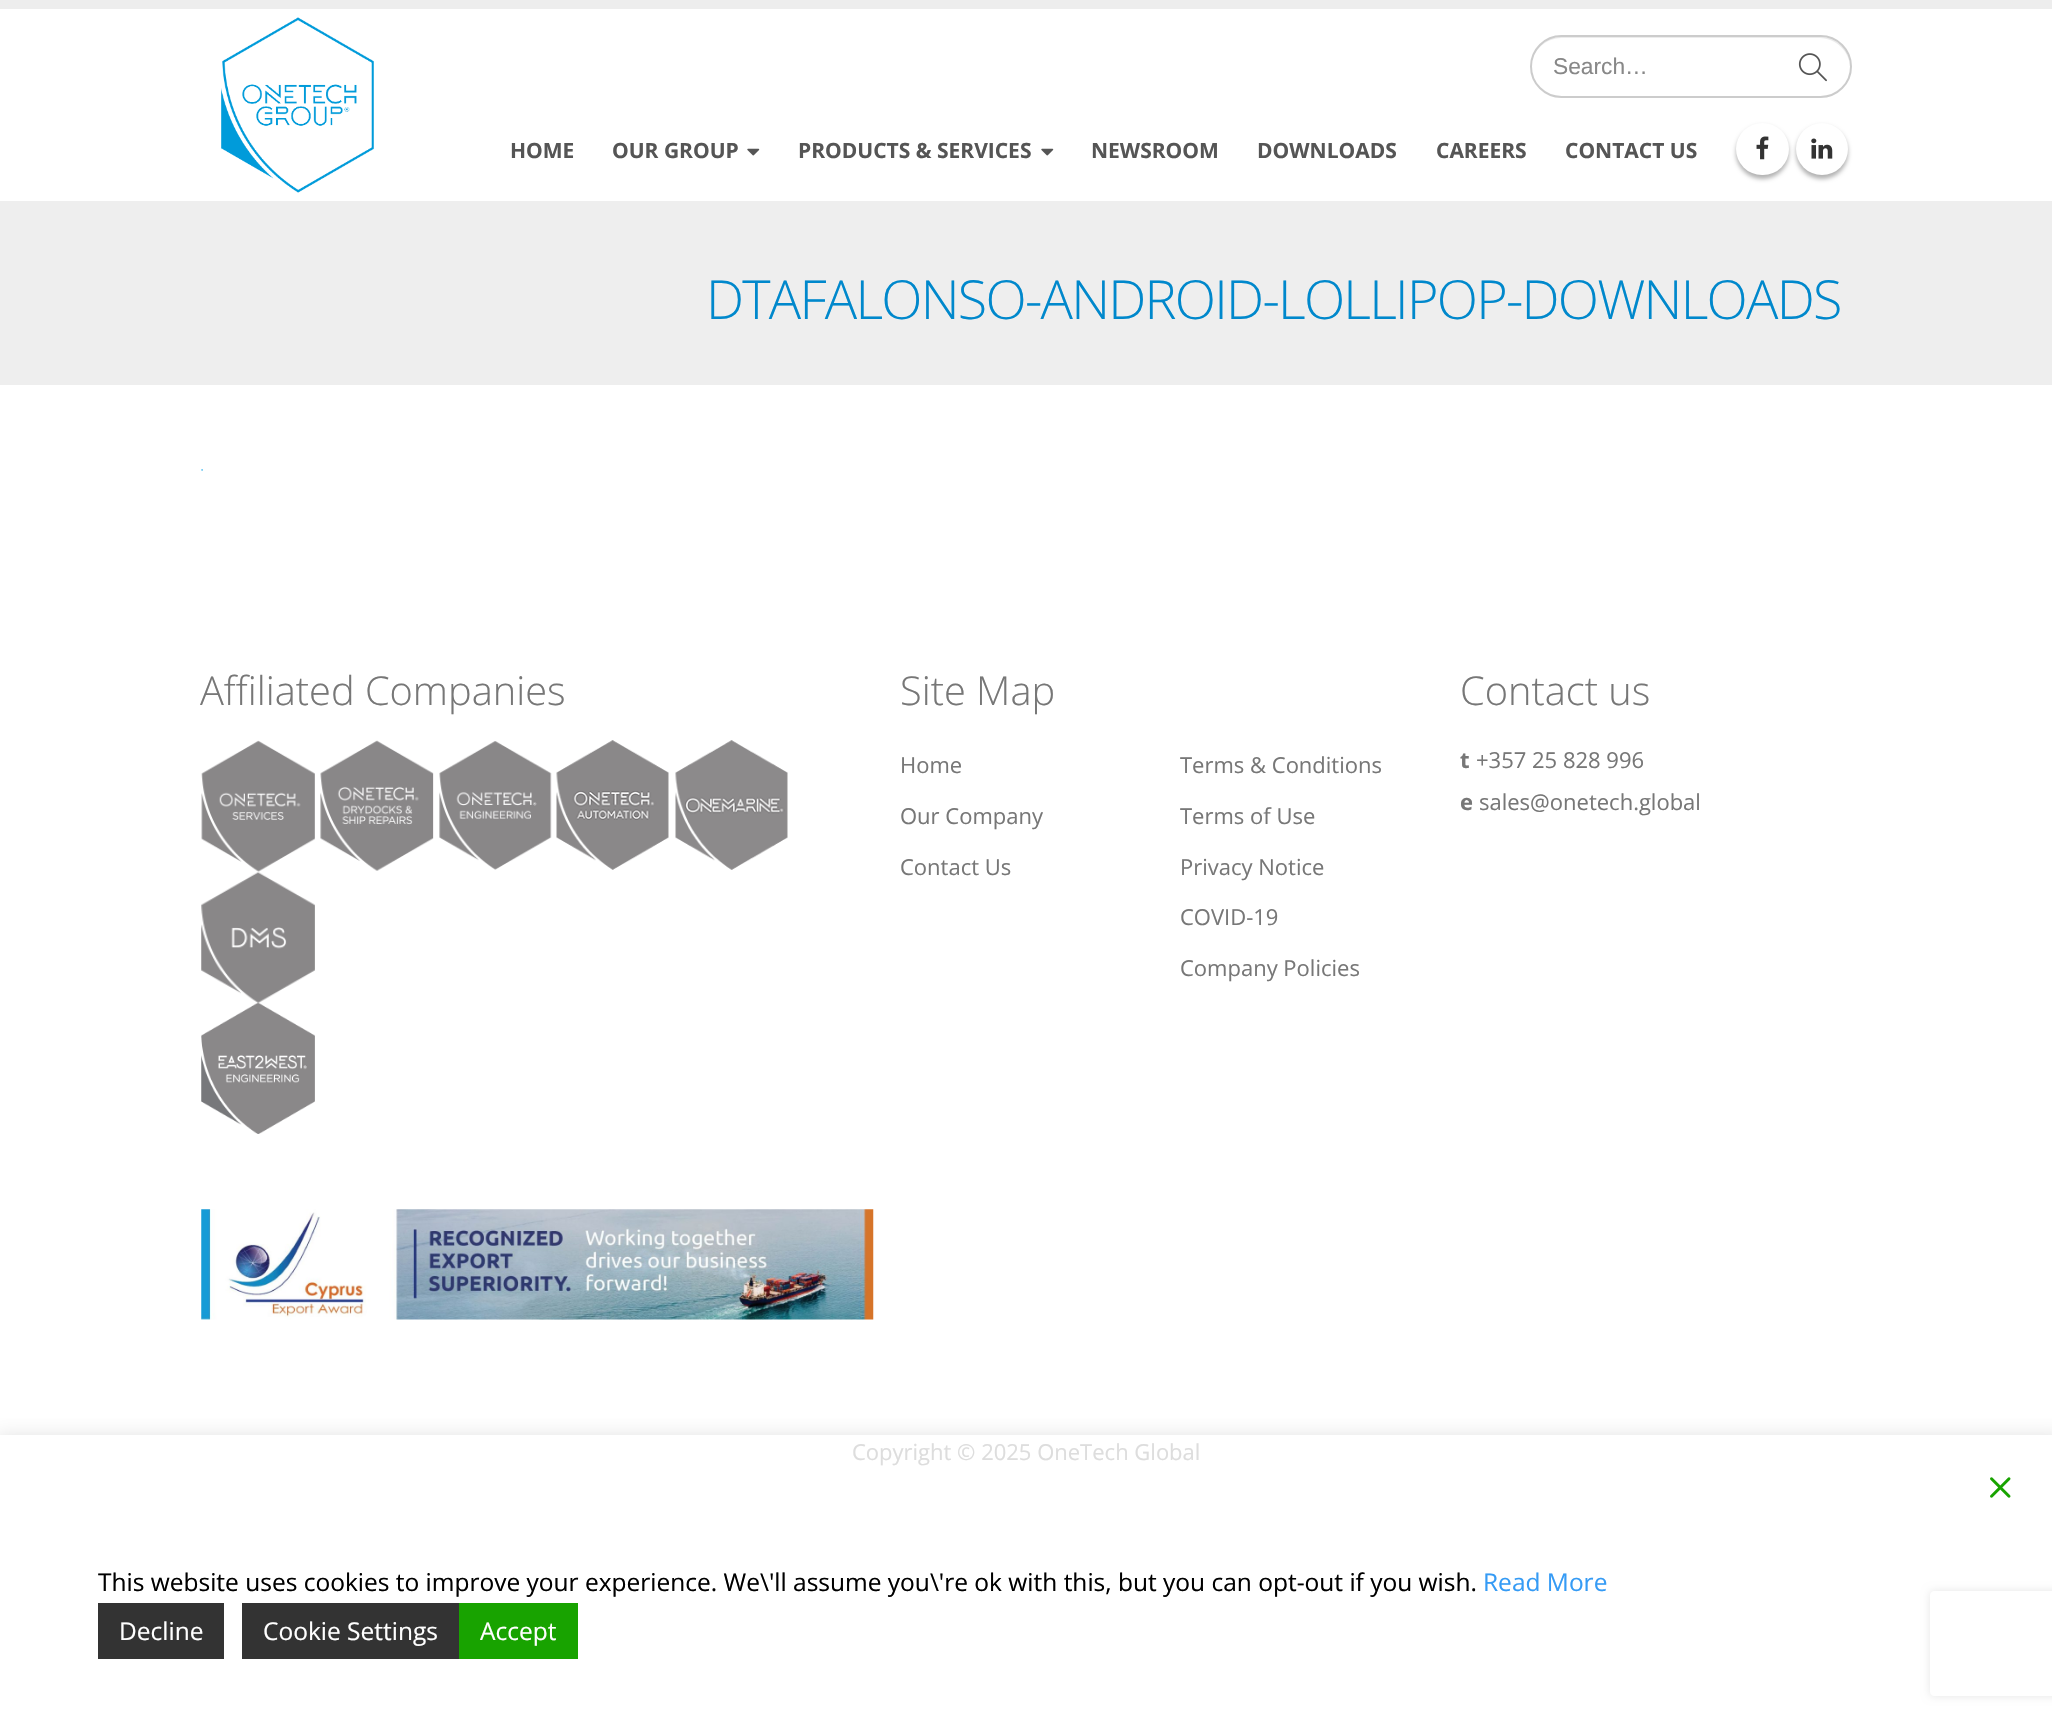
#include "include/core/SkBlurTypes.h"
#include "include/core/SkCanvas.h"
#include "include/core/SkData.h"
#include "include/core/SkFont.h"
#include "include/core/SkFontMgr.h"
#include "include/core/SkImage.h"
#include "include/core/SkMaskFilter.h"
#include "include/core/SkPaint.h"
#include "include/core/SkPathBuilder.h"
#include "include/core/SkTextBlob.h"
#include "include/effects/SkDashPathEffect.h"
#include "include/effects/SkGradientShader.h"
#include "include/utils/SkParsePath.h"

extern sk_sp<SkFontMgr> fontMgr;

static SkFont font(const char* family, int weight, float size, bool italic = false) {
    SkFontStyle style(weight, SkFontStyle::kNormal_Width,
        italic ? SkFontStyle::kItalic_Slant : SkFontStyle::kUpright_Slant);
    SkFont result(fontMgr->matchFamilyStyle(family, style), size);
    result.setSubpixel(true);
    return result;
}

static void drawLabel(SkCanvas* canvas, const char* s, float x, float y, const SkFont& font, SkColor color) {
    SkPaint ink(SkColor4f::FromColor(color));
    ink.setAntiAlias(true);
    canvas->drawString(s, x, y, font, ink);
}

static void drawTracked(SkCanvas* canvas, const char* s, float x, float y, const SkFont& font, const SkPaint& ink, float letter, float word) {
    std::vector<SkGlyphID> glyphs(font.countText(s, strlen(s), SkTextEncoding::kUTF8));
    std::vector<float> xs(glyphs.size());
    font.textToGlyphs(s, strlen(s), SkTextEncoding::kUTF8, glyphs);
    font.getXPos(glyphs, xs, x);
    float extra = 0;
    for (size_t i = 0; i < glyphs.size(); i++) {
        xs[i] += extra;
        extra += letter + word * (glyphs[i] == font.unicharToGlyph(' '));
    }
    canvas->drawTextBlob(SkTextBlob::MakeFromPosHGlyphs(glyphs, xs, y, font), 0, 0, ink);
}

static void fillRect(SkCanvas* canvas, float x, float y, float w, float h, SkColor color) {
    SkPaint ink(SkColor4f::FromColor(color));
    ink.setAntiAlias(true);
    canvas->drawRect(SkRect::MakeXYWH(x, y, w, h), ink);
}

static void fillRRect(SkCanvas* canvas, float x, float y, float w, float h, float radius, SkColor color) {
    SkPaint ink(SkColor4f::FromColor(color));
    ink.setAntiAlias(true);
    canvas->drawRoundRect(SkRect::MakeXYWH(x, y, w, h), radius, radius, ink);
}

static void drawPhoto(SkCanvas* canvas, const char* path, float x, float y, float w, float h) {
    auto image = SkImages::DeferredFromEncodedData(SkData::MakeFromFileName(path));
    canvas->drawImageRect(image, SkRect::MakeXYWH(x, y, w, h), SkSamplingOptions());
}

static SkPath parsePath(const char* data, bool evenOdd = false) {
    SkPath result = *SkParsePath::FromSVGString(data);
    if (evenOdd) result.setFillType(SkPathFillType::kEvenOdd);
    return result;
}

void draw(SkCanvas* canvas) {
    SkPaint paint;
    paint.setAntiAlias(true);
    canvas->clear(0xFFFFFFFF);
    fillRect(canvas, 0, 0, 2052, 9, 0xFFEDEDED);
    drawPhoto(canvas, "assets/img1.png", 221, 17, 153, 176);
    paint.setColor(0xFFECECEC);
    canvas->drawPath(parsePath("M1561 38H1820C1836 38 1850 52 1850 67V66C1850 50 1837 37 1820 37H1560C1544 37 1531 50 1531 66V67C1531 52 1545 38 1561 38Z"), paint);
    paint.setStroke(true);
    paint.setStrokeWidth(2);
    paint.setColor(0xFFCCCCCC);
    canvas->drawRoundRect(SkRect::MakeXYWH(1531, 36, 320, 61), 30.5f, 30.5f, paint);
    SkFont font1 = font("Liberation Sans", 400, 22.75f);
    drawLabel(canvas, "Search…", 1553, 74, font1, 0xFF888888);
    drawPhoto(canvas, "assets/img2.png", 1798, 53, 29, 29);
    SkFont font2 = font("Open Sans", 700, 21);
    drawLabel(canvas, "HOME", 510, 158, font2, 0xFF555555);
    drawLabel(canvas, "OUR GROUP", 612, 158, font2, 0xFF555555);
    drawPhoto(canvas, "assets/img3.png", 747, 148, 13, 8);
    drawLabel(canvas, "PRODUCTS & SERVICES", 798, 158, font2, 0xFF555555);
    drawPhoto(canvas, "assets/img3.png", 1041, 148, 13, 8);
    drawLabel(canvas, "NEWSROOM", 1091, 158, font2, 0xFF555555);
    drawLabel(canvas, "DOWNLOADS", 1257, 158, font2, 0xFF555555);
    drawLabel(canvas, "CAREERS", 1436, 158, font2, 0xFF555555);
    drawLabel(canvas, "CONTACT US", 1565, 158, font2, 0xFF555555);
    paint.setStroke(false);
    paint.setColor(0x4D000000);
    paint.setMaskFilter(SkMaskFilter::MakeBlur(kNormal_SkBlurStyle, 2));
    canvas->drawRoundRect(SkRect::MakeXYWH(1736, 126, 53, 53), 26.5f, 26.5f, paint);
    paint.setMaskFilter(nullptr);
    fillRRect(canvas, 1736, 123, 53, 52, 26, 0xFFFFFFFF);
    drawPhoto(canvas, "assets/img4.png", 1756, 136, 13, 24);
    paint.setMaskFilter(SkMaskFilter::MakeBlur(kNormal_SkBlurStyle, 2));
    canvas->drawRoundRect(SkRect::MakeXYWH(1796, 126, 52, 53), 26, 26, paint);
    paint.setMaskFilter(nullptr);
    paint.setColor(0xFFFFFFFF);
    canvas->drawCircle(1822, 149, 26, paint);
    drawPhoto(canvas, "assets/img5.png", 1811, 138, 22, 21);
    fillRect(canvas, 0, 201, 2052, 184, 0xFFEEEEEE);
    SkFont font3 = font("Open Sans", 300, 53.9f);
    paint.setColor(0xFF0088CC);
    drawTracked(canvas, "DTAFALONSO-ANDROID-LOLLIPOP-DOWNLOADS", 706, 319, font3, paint, -1.75f, 0);
    drawPhoto(canvas, "assets/img6.png", 201, 469, 2, 2);
    SkFont font4 = font("Open Sans", 300, 39.75f);
    drawLabel(canvas, "Affiliated Companies", 200, 705, font4, 0xFF777777);
    drawPhoto(canvas, "assets/img7.png", 201, 740, 114, 132);
    drawPhoto(canvas, "assets/img8.png", 320, 740, 114, 131);
    drawPhoto(canvas, "assets/img9.png", 439, 741, 113, 129);
    drawPhoto(canvas, "assets/img10.png", 556, 740, 113, 130);
    drawPhoto(canvas, "assets/img11.png", 675, 740, 113, 130);
    drawPhoto(canvas, "assets/img12.png", 201, 872, 114, 131);
    drawPhoto(canvas, "assets/img13.png", 201, 1002, 114, 132);
    drawPhoto(canvas, "assets/img14.png", 201, 1209, 673, 111);
    drawLabel(canvas, "Site Map", 900, 705, font4, 0xFF777777);
    SkFont font5 = font("Open Sans", 400, 22);
    drawLabel(canvas, "Home", 900, 773, font5, 0xFF777777);
    drawLabel(canvas, "Our Company", 900, 824, font5, 0xFF777777);
    drawLabel(canvas, "Contact Us", 900, 875, font5, 0xFF777777);
    drawLabel(canvas, "Terms & Conditions", 1180, 773, font5, 0xFF777777);
    drawLabel(canvas, "Terms of Use", 1180, 824, font5, 0xFF777777);
    drawLabel(canvas, "Privacy Notice", 1180, 875, font5, 0xFF777777);
    drawLabel(canvas, "COVID-19", 1180, 925, font5, 0xFF777777);
    drawLabel(canvas, "Company Policies", 1180, 976, font5, 0xFF777777);
    drawLabel(canvas, "Contact us", 1460, 705, font4, 0xFF777777);
    SkFont font6 = font("Open Sans", 700, 22);
    drawLabel(canvas, "t", 1460, 768, font6, 0xFF777777);
    drawLabel(canvas, "+357 25 828 996", 1476, 768, font5, 0xFF777777);
    drawLabel(canvas, "e", 1460, 810, font6, 0xFF777777);
    drawLabel(canvas, "sales@onetech.global", 1479, 810, font5, 0xFF777777);
    drawLabel(canvas, "Copyright © 2025 OneTech Global", 852, 1460, font5, 0xFFDDDDDD);
    canvas->save();
    canvas->clipRect(SkRect::MakeXYWH(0, 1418, 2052, 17));
    paint.setColor(0xFFDDDDDD);
    paint.setMaskFilter(SkMaskFilter::MakeBlur(kNormal_SkBlurStyle, 9.5f));
    canvas->drawRect(SkRect::MakeXYWH(-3, 1437, 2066, 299), paint);
    paint.setMaskFilter(nullptr);
    canvas->restore();
    drawPhoto(canvas, "assets/img15.png", 1990, 1477, 21, 21);
    SkFont font7 = font("Open Sans", 400, 24.5f);
    drawLabel(canvas, "This website uses cookies to improve your experience. We\\'ll assume you\\'re ok with this, but you can opt-out if you wish.", 98, 1591, font7, 0xFF000000);
    drawLabel(canvas, "Read More", 1483, 1591, font7, 0xFF359BF5);
    fillRect(canvas, 98, 1603, 126, 56, 0xFF333333);
    drawLabel(canvas, "Decline", 119, 1640, font7, 0xFFFFFFFF);
    fillRect(canvas, 242, 1603, 217, 56, 0xFF333333);
    drawLabel(canvas, "Cookie Settings", 263, 1640, font7, 0xFFFFFFFF);
    fillRect(canvas, 459, 1603, 119, 56, 0xFF18A300);
    drawLabel(canvas, "Accept", 480, 1640, font7, 0xFFFFFFFF);
    canvas->save();
    canvas->clipPath(parsePath("M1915 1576H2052V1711H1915ZM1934 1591H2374C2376 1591 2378 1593 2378 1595V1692C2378 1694 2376 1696 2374 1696H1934C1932 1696 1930 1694 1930 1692V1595C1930 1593 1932 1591 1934 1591Z", true), true);
    paint.setColor(0xFFE6E6E6);
    paint.setMaskFilter(SkMaskFilter::MakeBlur(kNormal_SkBlurStyle, 4.5f));
    canvas->drawRoundRect(SkRect::MakeXYWH(1930, 1591, 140, 105), 4, 4, paint);
    paint.setMaskFilter(nullptr);
    canvas->restore();
}
